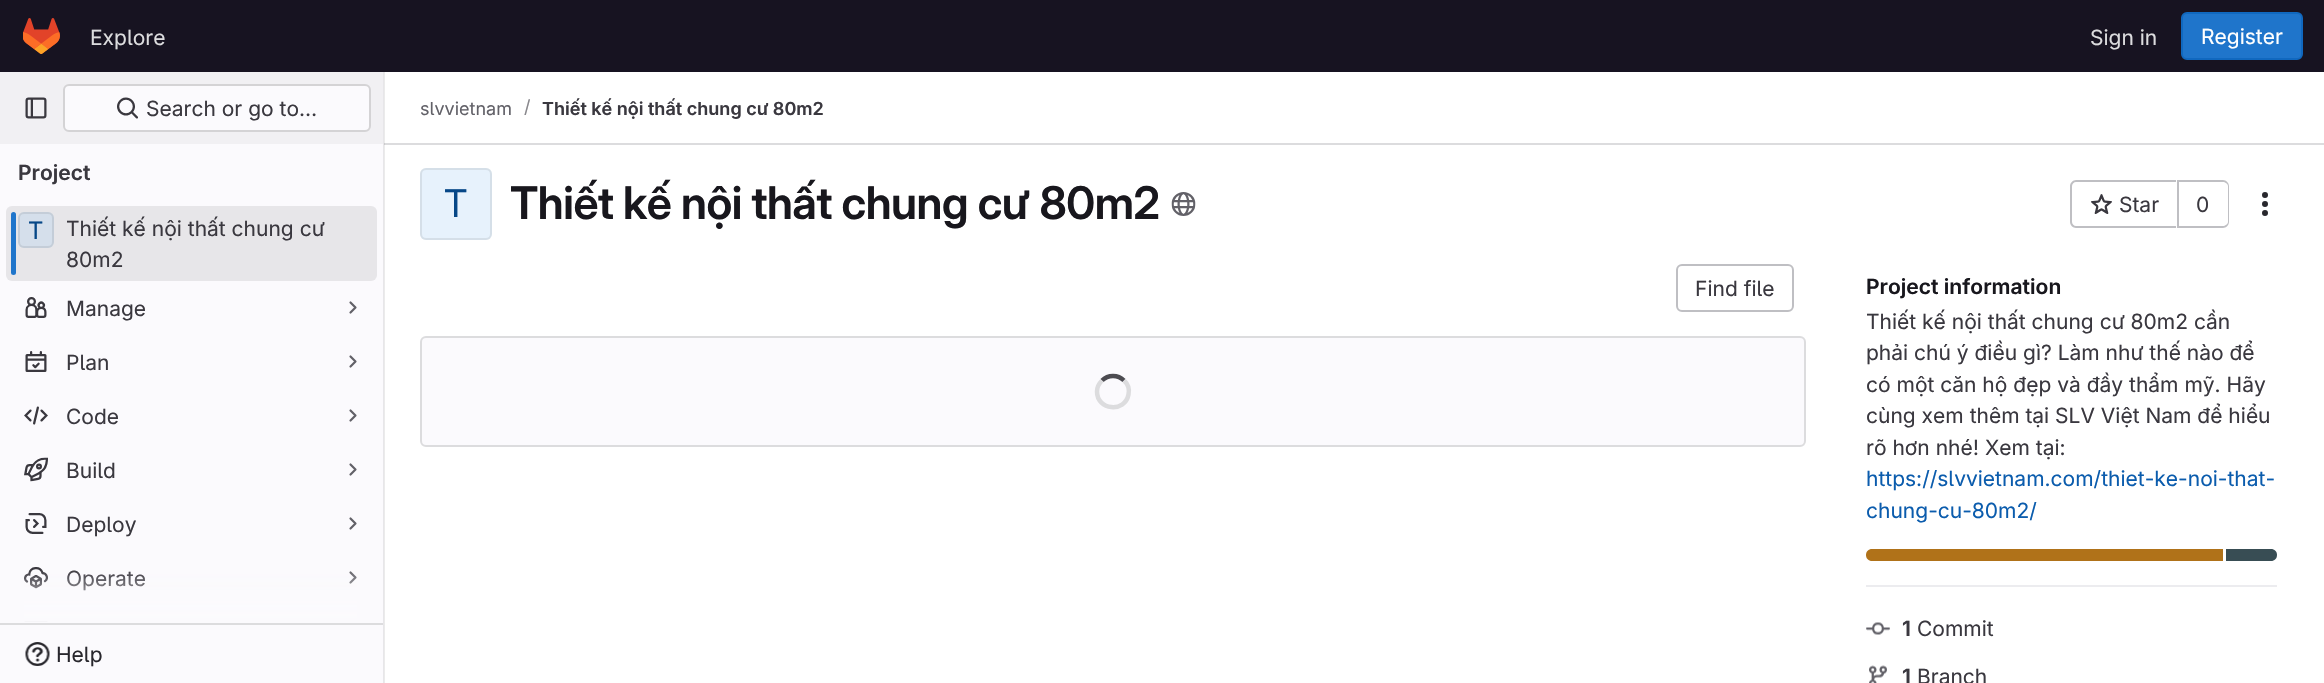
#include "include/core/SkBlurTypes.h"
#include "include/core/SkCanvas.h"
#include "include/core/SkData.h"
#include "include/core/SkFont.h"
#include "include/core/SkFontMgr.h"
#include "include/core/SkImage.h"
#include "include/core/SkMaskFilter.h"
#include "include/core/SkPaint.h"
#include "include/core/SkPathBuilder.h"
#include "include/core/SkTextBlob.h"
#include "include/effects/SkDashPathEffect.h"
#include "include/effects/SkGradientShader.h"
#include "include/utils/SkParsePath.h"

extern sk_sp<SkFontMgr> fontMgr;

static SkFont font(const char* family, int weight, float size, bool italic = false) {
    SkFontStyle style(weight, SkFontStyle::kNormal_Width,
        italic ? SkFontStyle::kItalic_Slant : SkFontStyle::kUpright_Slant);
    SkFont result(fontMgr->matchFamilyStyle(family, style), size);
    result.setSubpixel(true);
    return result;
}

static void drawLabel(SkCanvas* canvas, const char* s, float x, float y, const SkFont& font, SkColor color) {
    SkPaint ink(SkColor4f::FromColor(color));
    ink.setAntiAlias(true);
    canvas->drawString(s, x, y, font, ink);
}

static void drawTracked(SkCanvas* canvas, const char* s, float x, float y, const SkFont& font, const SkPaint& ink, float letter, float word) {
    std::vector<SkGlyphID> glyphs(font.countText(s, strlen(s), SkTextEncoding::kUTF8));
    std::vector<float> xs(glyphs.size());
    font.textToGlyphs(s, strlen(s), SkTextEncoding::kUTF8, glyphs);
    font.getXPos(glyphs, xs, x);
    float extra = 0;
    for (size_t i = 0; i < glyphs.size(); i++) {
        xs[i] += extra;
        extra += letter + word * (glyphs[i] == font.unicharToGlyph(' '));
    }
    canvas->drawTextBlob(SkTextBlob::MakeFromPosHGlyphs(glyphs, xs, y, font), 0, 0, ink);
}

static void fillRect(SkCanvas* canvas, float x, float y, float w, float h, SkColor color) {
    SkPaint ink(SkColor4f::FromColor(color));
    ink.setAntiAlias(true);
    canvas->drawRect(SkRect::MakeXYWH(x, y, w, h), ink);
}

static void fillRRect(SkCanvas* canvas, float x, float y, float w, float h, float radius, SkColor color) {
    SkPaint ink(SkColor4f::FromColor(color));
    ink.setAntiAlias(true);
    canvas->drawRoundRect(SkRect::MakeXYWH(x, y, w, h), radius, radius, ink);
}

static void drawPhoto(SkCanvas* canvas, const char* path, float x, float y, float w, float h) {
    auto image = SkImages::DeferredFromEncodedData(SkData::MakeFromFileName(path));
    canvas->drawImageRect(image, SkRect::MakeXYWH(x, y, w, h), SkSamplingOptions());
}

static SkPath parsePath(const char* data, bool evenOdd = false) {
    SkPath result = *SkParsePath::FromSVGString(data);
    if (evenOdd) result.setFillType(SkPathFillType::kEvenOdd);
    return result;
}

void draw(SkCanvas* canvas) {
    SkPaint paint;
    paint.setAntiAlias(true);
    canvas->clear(0xFFFFFFFF);
    fillRect(canvas, 384, 72, 1, 611, 0xFFEBEBEB);
    fillRect(canvas, 0, 0, 2324, 72, 0xFF171321);
    drawPhoto(canvas, "assets/img1.png", 23, 18, 37, 36);
    SkFont font1 = font("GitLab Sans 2", 400, 21);
    drawLabel(canvas, "Explore", 90, 45, font1, 0xFFDCDCDE);
    drawLabel(canvas, "Sign in", 2090, 45, font1, 0xFFDCDCDE);
    paint.setColor(0xFF1F75CB);
    canvas->drawRoundRect(SkRect::MakeXYWH(2182, 13, 120, 46), 5, 5, paint);
    paint.setStroke(true);
    paint.setStrokeWidth(2);
    paint.setColor(0xFF1068BF);
    canvas->drawRoundRect(SkRect::MakeXYWH(2182, 13, 120, 46), 5, 5, paint);
    drawLabel(canvas, "Register", 2201, 44, font1, 0xFFFFFFFF);
    fillRect(canvas, 0, 144, 383, 539, 0xFFFBFAFD);
    fillRect(canvas, 383, 72, 1, 611, 0xFFE7E6E9);
    fillRect(canvas, 0, 72, 383, 72, 0xFFF1F0F3);
    drawPhoto(canvas, "assets/img2.png", 25, 97, 22, 22);
    paint.setStroke(false);
    paint.setColor(0xFFFBFAFD);
    canvas->drawRoundRect(SkRect::MakeXYWH(64, 85, 306, 46), 5, 5, paint);
    paint.setStroke(true);
    paint.setColor(0xFFD4D3D5);
    canvas->drawRoundRect(SkRect::MakeXYWH(64, 85, 306, 46), 5, 5, paint);
    drawPhoto(canvas, "assets/img3.png", 117, 97, 21, 22);
    drawLabel(canvas, "Search or go to…", 146, 116, font1, 0xFF3A383F);
    SkFont font2 = font("GitLab Sans 2", 600, 21);
    drawLabel(canvas, "Project", 18, 180, font2, 0xFF3A383F);
    fillRect(canvas, 0, 623, 383, 2, 0xFFDCDCDE);
    fillRRect(canvas, 6, 206, 371, 75, 6, 0xFFE7E6E9);
    fillRRect(canvas, 11, 212, 5, 63, 2.5f, 0xFF1F75CB);
    fillRRect(canvas, 18, 212, 36, 36, 6, 0xFFD5DFEB);
    paint.setColor(0x14050506);
    canvas->drawRoundRect(SkRect::MakeXYWH(19, 213, 34, 34), 5, 5, paint);
    SkFont font3 = font("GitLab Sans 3", 400, 24);
    drawLabel(canvas, "T", 28, 239, font3, 0xFF064787);
    drawLabel(canvas, "Thiết kế nội thất chung cư", 66, 236, font1, 0xFF3A383F);
    drawLabel(canvas, "80m2", 66, 267, font1, 0xFF3A383F);
    drawPhoto(canvas, "assets/img4.png", 25, 297, 22, 21);
    drawLabel(canvas, "Manage", 66, 316, font1, 0xFF3A383F);
    paint.setStrokeWidth(2.2f);
    paint.setStrokeCap(SkPaint::kRound_Cap);
    paint.setStrokeJoin(SkPaint::kRound_Join);
    paint.setColor(0xFF626168);
    canvas->drawPath(parsePath("M350.5 302.5L355.5 307.5L350.5 312.5"), paint);
    drawPhoto(canvas, "assets/img5.png", 25, 351, 22, 21);
    drawLabel(canvas, "Plan", 66, 370, font1, 0xFF3A383F);
    canvas->drawPath(parsePath("M350.5 356.5L355.5 361.5L350.5 366.5"), paint);
    drawPhoto(canvas, "assets/img6.png", 24, 406, 24, 19);
    drawLabel(canvas, "Code", 66, 424, font1, 0xFF3A383F);
    canvas->drawPath(parsePath("M350.5 410.5L355.5 415.5L350.5 420.5"), paint);
    drawPhoto(canvas, "assets/img7.png", 24, 457, 24, 25);
    drawLabel(canvas, "Build", 66, 478, font1, 0xFF3A383F);
    canvas->drawPath(parsePath("M350.5 464.5L355.5 469.5L350.5 474.5"), paint);
    drawPhoto(canvas, "assets/img8.png", 25, 513, 22, 21);
    drawLabel(canvas, "Deploy", 66, 532, font1, 0xFF3A383F);
    canvas->drawPath(parsePath("M350.5 518.5L355.5 523.5L350.5 528.5"), paint);
    drawPhoto(canvas, "assets/img9.png", 24, 567, 24, 22);
    drawLabel(canvas, "Operate", 66, 586, font1, 0xFF3A383F);
    canvas->drawPath(parsePath("M350.5 572.5L355.5 577.5L350.5 582.5"), paint);
    drawPhoto(canvas, "assets/img10.png", 24, 621, 24, 2);
    paint.setStroke(false);
    {
        const SkColor colors[] = {0x00FBFAFD, 0xFFFBFAFD};
        const float stops[] = {0, 1};
        const SkPoint ends[] = {{191, 569}, {191, 623}};
        paint.setShader(SkGradientShader::MakeLinear(ends, colors, stops, 2, SkTileMode::kClamp));
        paint.setAlpha(255);
    }
    canvas->drawRect(SkRect::MakeXYWH(24, 570, 333, 53), paint);
    drawPhoto(canvas, "assets/img11.png", 25, 642, 25, 24);
    drawLabel(canvas, "Help", 56, 662, font1, 0xFF28272D);
    fillRect(canvas, 384, 143, 1940, 2, 0xFFDCDCDE);
    fillRect(canvas, 384, 143, 1, 2, 0xFFCBCBCD);
    SkFont font4 = font("GitLab Sans 2", 400, 18);
    drawLabel(canvas, "slvvietnam", 420, 115, font4, 0xFF626168);
    drawLabel(canvas, "/", 524, 113, font4, 0xFF89888D);
    SkFont font5 = font("GitLab Sans 2", 600, 18);
    drawLabel(canvas, "Thiết kế nội thất chung cư 80m2", 542, 115, font5, 0xFF3A383F);
    fillRRect(canvas, 420, 168, 72, 72, 6, 0xFFE7F2FC);
    paint.setStroke(true);
    paint.setStrokeWidth(2);
    paint.setStrokeCap(SkPaint::kButt_Cap);
    paint.setStrokeJoin(SkPaint::kMiter_Join);
    paint.setShader(nullptr);
    paint.setColor(0x14050506);
    canvas->drawRoundRect(SkRect::MakeXYWH(421, 169, 70, 70), 5, 5, paint);
    SkFont font6 = font("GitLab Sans", 400, 38);
    drawLabel(canvas, "T", 444, 217, font6, 0xFF064787);
    SkFont font7 = font("GitLab Sans", 600, 45);
    paint.setStroke(false);
    paint.setColor(0xFF18171D);
    drawTracked(canvas, "Thiết kế nội thất chung cư 80m2", 510, 219, font7, paint, -0.45f, 0);
    drawPhoto(canvas, "assets/img12.png", 1171, 192, 25, 24);
    paint.setColor(0xFFBFBFC3);
    canvas->drawPath(parsePath("M2076 180H2176V228H2076C2073 228 2070 225 2070 222V186C2070 183 2073 180 2076 180ZM2076 182H2176V226H2076C2074 226 2072 224 2072 222V186C2072 184 2074 182 2076 182Z", true), paint);
    drawPhoto(canvas, "assets/img13.png", 2091, 194, 21, 20);
    drawLabel(canvas, "Star", 2119, 212, font1, 0xFF3A383F);
    canvas->drawPath(parsePath("M2178 180H2223C2226 180 2229 183 2229 186V222C2229 225 2226 228 2223 228H2178ZM2178 182H2223C2225 182 2228 184 2228 186V222C2228 224 2225 226 2223 226H2178Z", true), paint);
    fillRect(canvas, 2177, 180, 2, 48, 0xFFBFBFC3);
    drawLabel(canvas, "0", 2196, 212, font1, 0xFF3A383F);
    drawPhoto(canvas, "assets/img14.png", 2262, 192, 6, 24);
    paint.setStroke(true);
    canvas->drawRoundRect(SkRect::MakeXYWH(1677, 265, 116, 46), 5, 5, paint);
    drawLabel(canvas, "Find file", 1695, 296, font1, 0xFF3A383F);
    paint.setStroke(false);
    paint.setColor(0xFFFBFAFD);
    canvas->drawRoundRect(SkRect::MakeXYWH(421, 337, 1384, 109), 5, 5, paint);
    paint.setStroke(true);
    paint.setColor(0xFFDCDCDE);
    canvas->drawRoundRect(SkRect::MakeXYWH(421, 337, 1384, 109), 5, 5, paint);
    paint.setStrokeWidth(4.5f);
    paint.setColor(0xFF4C4B51);
    canvas->drawPath(parsePath("M1102 380.5C1108 374.5 1118 374.5 1124 380.5"), paint);
    paint.setColor(0xFFDCDCDE);
    canvas->drawPath(parsePath("M1124 380.5C1128 384 1129.5 389.5 1128.5 394.5C1125 413 1097 410.5 1097 391.5C1097 387.5 1099 383.5 1102 380.5"), paint);
    fillRect(canvas, 1866, 585, 411, 2, 0xFFECECEF);
    drawLabel(canvas, "Project information", 1866, 294, font2, 0xFF18171D);
    drawLabel(canvas, "Thiết kế nội thất chung cư 80m2 cần", 1866, 329, font1, 0xFF3A383F);
    drawLabel(canvas, "phải chú ý điều gì? Làm như thế nào để", 1866, 360, font1, 0xFF3A383F);
    drawLabel(canvas, "có một căn hộ đẹp và đầy thẩm mỹ. Hãy", 1866, 392, font1, 0xFF3A383F);
    drawLabel(canvas, "cùng xem thêm tại SLV Việt Nam để hiểu", 1866, 423, font1, 0xFF3A383F);
    drawLabel(canvas, "rõ hơn nhé! Xem tại:", 1866, 455, font1, 0xFF3A383F);
    drawLabel(canvas, "https://slvvietnam.com/thiet-ke-noi-that-", 1866, 486, font1, 0xFF0B5CAD);
    drawLabel(canvas, "chung-cu-80m2/", 1866, 518, font1, 0xFF0B5CAD);
    paint.setStroke(false);
    paint.setColor(0xFFB07219);
    canvas->drawPath(parsePath("M1872 549H2223V561H1872C1868.5 561 1866 558.5 1866 555C1866 551.5 1868.5 549 1872 549Z"), paint);
    paint.setColor(0xFF384D54);
    canvas->drawPath(parsePath("M2226 549H2271C2274.5 549 2277 551.5 2277 555C2277 558.5 2274.5 561 2271 561H2226Z"), paint);
    drawPhoto(canvas, "assets/img15.png", 1866, 622, 24, 13);
    drawLabel(canvas, "1", 1902, 636, font2, 0xFF3A383F);
    drawLabel(canvas, "Commit", 1917, 636, font1, 0xFF3A383F);
    drawPhoto(canvas, "assets/img16.png", 1869, 665, 18, 18);
    drawLabel(canvas, "1", 1902, 684, font2, 0xFF3A383F);
    drawLabel(canvas, "Branch", 1917, 684, font1, 0xFF3A383F);
}
